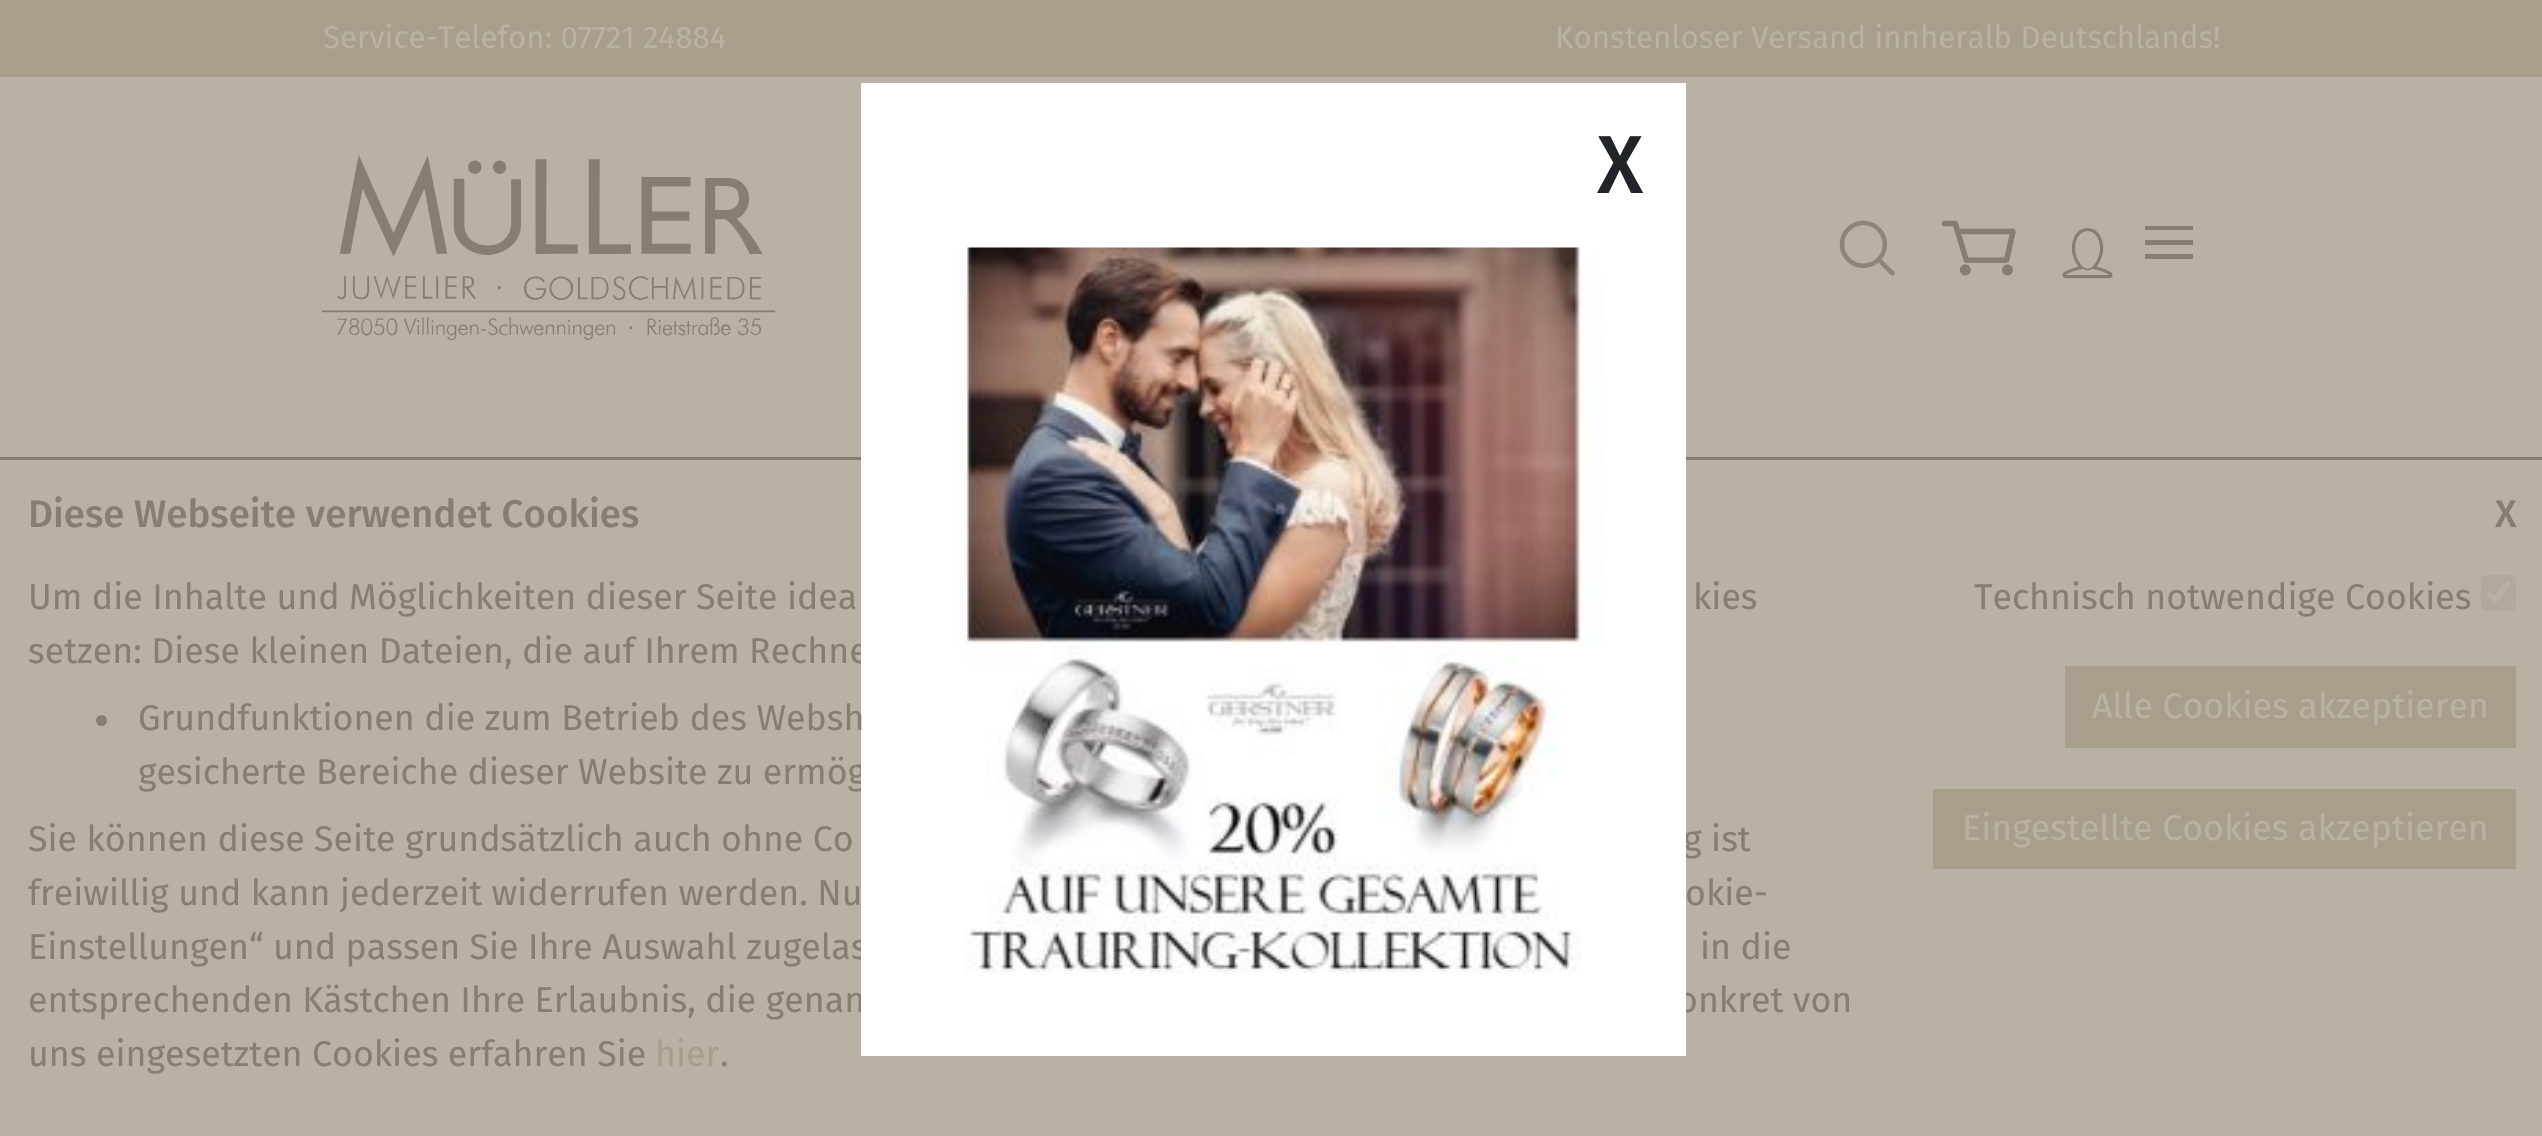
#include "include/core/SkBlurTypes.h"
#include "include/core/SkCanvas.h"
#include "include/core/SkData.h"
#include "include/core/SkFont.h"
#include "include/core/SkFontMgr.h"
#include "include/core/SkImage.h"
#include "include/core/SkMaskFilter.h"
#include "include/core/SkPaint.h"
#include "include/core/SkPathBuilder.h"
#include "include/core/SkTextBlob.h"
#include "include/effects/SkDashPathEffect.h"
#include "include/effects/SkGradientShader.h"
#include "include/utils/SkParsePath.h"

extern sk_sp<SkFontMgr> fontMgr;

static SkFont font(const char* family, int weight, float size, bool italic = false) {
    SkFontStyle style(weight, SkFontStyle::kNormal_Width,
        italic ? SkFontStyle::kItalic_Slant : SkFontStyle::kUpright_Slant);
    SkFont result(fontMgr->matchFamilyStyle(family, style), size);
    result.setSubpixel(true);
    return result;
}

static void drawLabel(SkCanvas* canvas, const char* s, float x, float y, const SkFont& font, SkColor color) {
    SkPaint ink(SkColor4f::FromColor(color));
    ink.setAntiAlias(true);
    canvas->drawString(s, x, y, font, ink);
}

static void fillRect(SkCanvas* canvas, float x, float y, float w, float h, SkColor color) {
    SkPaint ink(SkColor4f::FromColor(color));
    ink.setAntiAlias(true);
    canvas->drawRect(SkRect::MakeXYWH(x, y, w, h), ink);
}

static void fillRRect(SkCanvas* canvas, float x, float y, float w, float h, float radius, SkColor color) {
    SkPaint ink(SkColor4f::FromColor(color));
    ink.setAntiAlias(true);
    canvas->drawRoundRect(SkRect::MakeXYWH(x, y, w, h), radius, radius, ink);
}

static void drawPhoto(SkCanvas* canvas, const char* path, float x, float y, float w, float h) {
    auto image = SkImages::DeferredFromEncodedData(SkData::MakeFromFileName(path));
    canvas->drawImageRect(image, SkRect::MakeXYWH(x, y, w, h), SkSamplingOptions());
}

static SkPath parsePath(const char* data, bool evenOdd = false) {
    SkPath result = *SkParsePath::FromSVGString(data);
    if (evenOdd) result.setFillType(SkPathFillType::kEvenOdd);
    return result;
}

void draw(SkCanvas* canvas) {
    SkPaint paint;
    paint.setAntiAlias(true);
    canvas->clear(0xFFB9B1A3);
    fillRect(canvas, 0, 0, 2542, 77, 0xFFA89E8C);
    SkFont font1 = font("Fira Sans", 400, 31.3f);
    drawLabel(canvas, "Service-Telefon: 07721 24884", 323, 48, font1, 0xFFB9B1A3);
    drawLabel(canvas, "Konstenloser Versand innheralb Deutschlands!", 1555, 48, font1, 0xFFB9B1A3);
    drawPhoto(canvas, "assets/img1.png", 322, 155, 454, 185);
    drawPhoto(canvas, "assets/img2.png", 1839, 220, 56, 56);
    drawPhoto(canvas, "assets/img3.png", 1941, 220, 75, 56);
    drawPhoto(canvas, "assets/img4.png", 2062, 228, 51, 51);
    paint.setColor(0xFF867E70);
    canvas->drawPath(parsePath("M2145 226H2193V230H2145ZM2145 240H2193V245H2145ZM2145 254H2193V259H2145Z"), paint);
    fillRect(canvas, 0, 457, 2542, 3, 0xFF867E70);
    SkFont font2 = font("Fira Sans", 400, 35.75f);
    drawLabel(canvas, "setzen: Diese kleinen Dateien, die auf Ihrem Rechne", 28, 663, font2, 0xFF867E70);
    drawLabel(canvas, "gesicherte Bereiche dieser Website zu ermög", 138, 784, font2, 0xFF867E70);
    drawLabel(canvas, "g ist", 1683, 851, font2, 0xFF867E70);
    drawLabel(canvas, "Einstellungen“ und passen Sie Ihre Auswahl zugelas", 28, 959, font2, 0xFF867E70);
    drawLabel(canvas, "entsprechenden Kästchen Ihre Erlaubnis, die genan", 28, 1012, font2, 0xFF867E70);
    drawLabel(canvas, "onkret von", 1677, 1012, font2, 0xFF867E70);
    fillRect(canvas, 861, 83, 825, 973, 0xFFFFFFFF);
    SkFont font3 = font("Fira Sans", 500, 82);
    drawLabel(canvas, "X", 1597, 193, font3, 0xFF212529);
    drawPhoto(canvas, "assets/img5.png", 953, 247, 650, 727);
    SkFont font4 = font("Fira Sans", 500, 38.5f);
    drawLabel(canvas, "Diese Webseite verwendet Cookies", 28, 527, font4, 0xFF867E70);
    drawLabel(canvas, "X", 2495, 527, font4, 0xFF867E70);
    drawLabel(canvas, "Um die Inhalte und Möglichkeiten dieser Seite idea", 28, 609, font2, 0xFF867E70);
    drawLabel(canvas, "kies", 1693, 609, font2, 0xFF867E70);
    canvas->drawCircle(101.5f, 720.5f, 5.5f, paint);
    drawLabel(canvas, "Grundfunktionen die zum Betrieb des Websh", 138, 730, font2, 0xFF867E70);
    drawLabel(canvas, "Sie können diese Seite grundsätzlich auch ohne Co", 28, 851, font2, 0xFF867E70);
    canvas->save();
    canvas->clipRect(SkRect::MakeXYWH(28, 487, 2488, 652));
    drawLabel(canvas, "freiwillig und kann jederzeit widerrufen werden. Nu", 28, 905, font2, 0xFF867E70);
    canvas->restore();
    drawLabel(canvas, "okie-", 1685, 905, font2, 0xFF867E70);
    drawLabel(canvas, "in die", 1700, 959, font2, 0xFF867E70);
    drawLabel(canvas, "uns eingesetzten Cookies erfahren Sie", 28, 1066, font2, 0xFF867E70);
    drawLabel(canvas, "hier", 655, 1066, font2, 0xFFA89E8C);
    drawLabel(canvas, ".", 720, 1066, font2, 0xFF867E70);
    drawLabel(canvas, "Technisch notwendige Cookies", 1974, 609, font2, 0xFF867E70);
    fillRRect(canvas, 2481, 575, 35, 36, 6, 0xFFB1A99B);
    paint.setStroke(true);
    paint.setStrokeWidth(5.7f);
    paint.setColor(0xFFB9B1A3);
    canvas->drawPath(parsePath("M2487.5 592.5L2495 600L2509 582"), paint);
    fillRect(canvas, 2065, 666, 451, 82, 0xFFA89E8C);
    drawLabel(canvas, "Alle Cookies akzeptieren", 2092, 718, font2, 0xFFB9B1A3);
    fillRect(canvas, 1933, 789, 583, 80, 0xFFA89E8C);
    drawLabel(canvas, "Eingestellte Cookies akzeptieren", 1962, 840, font2, 0xFFB9B1A3);
}
